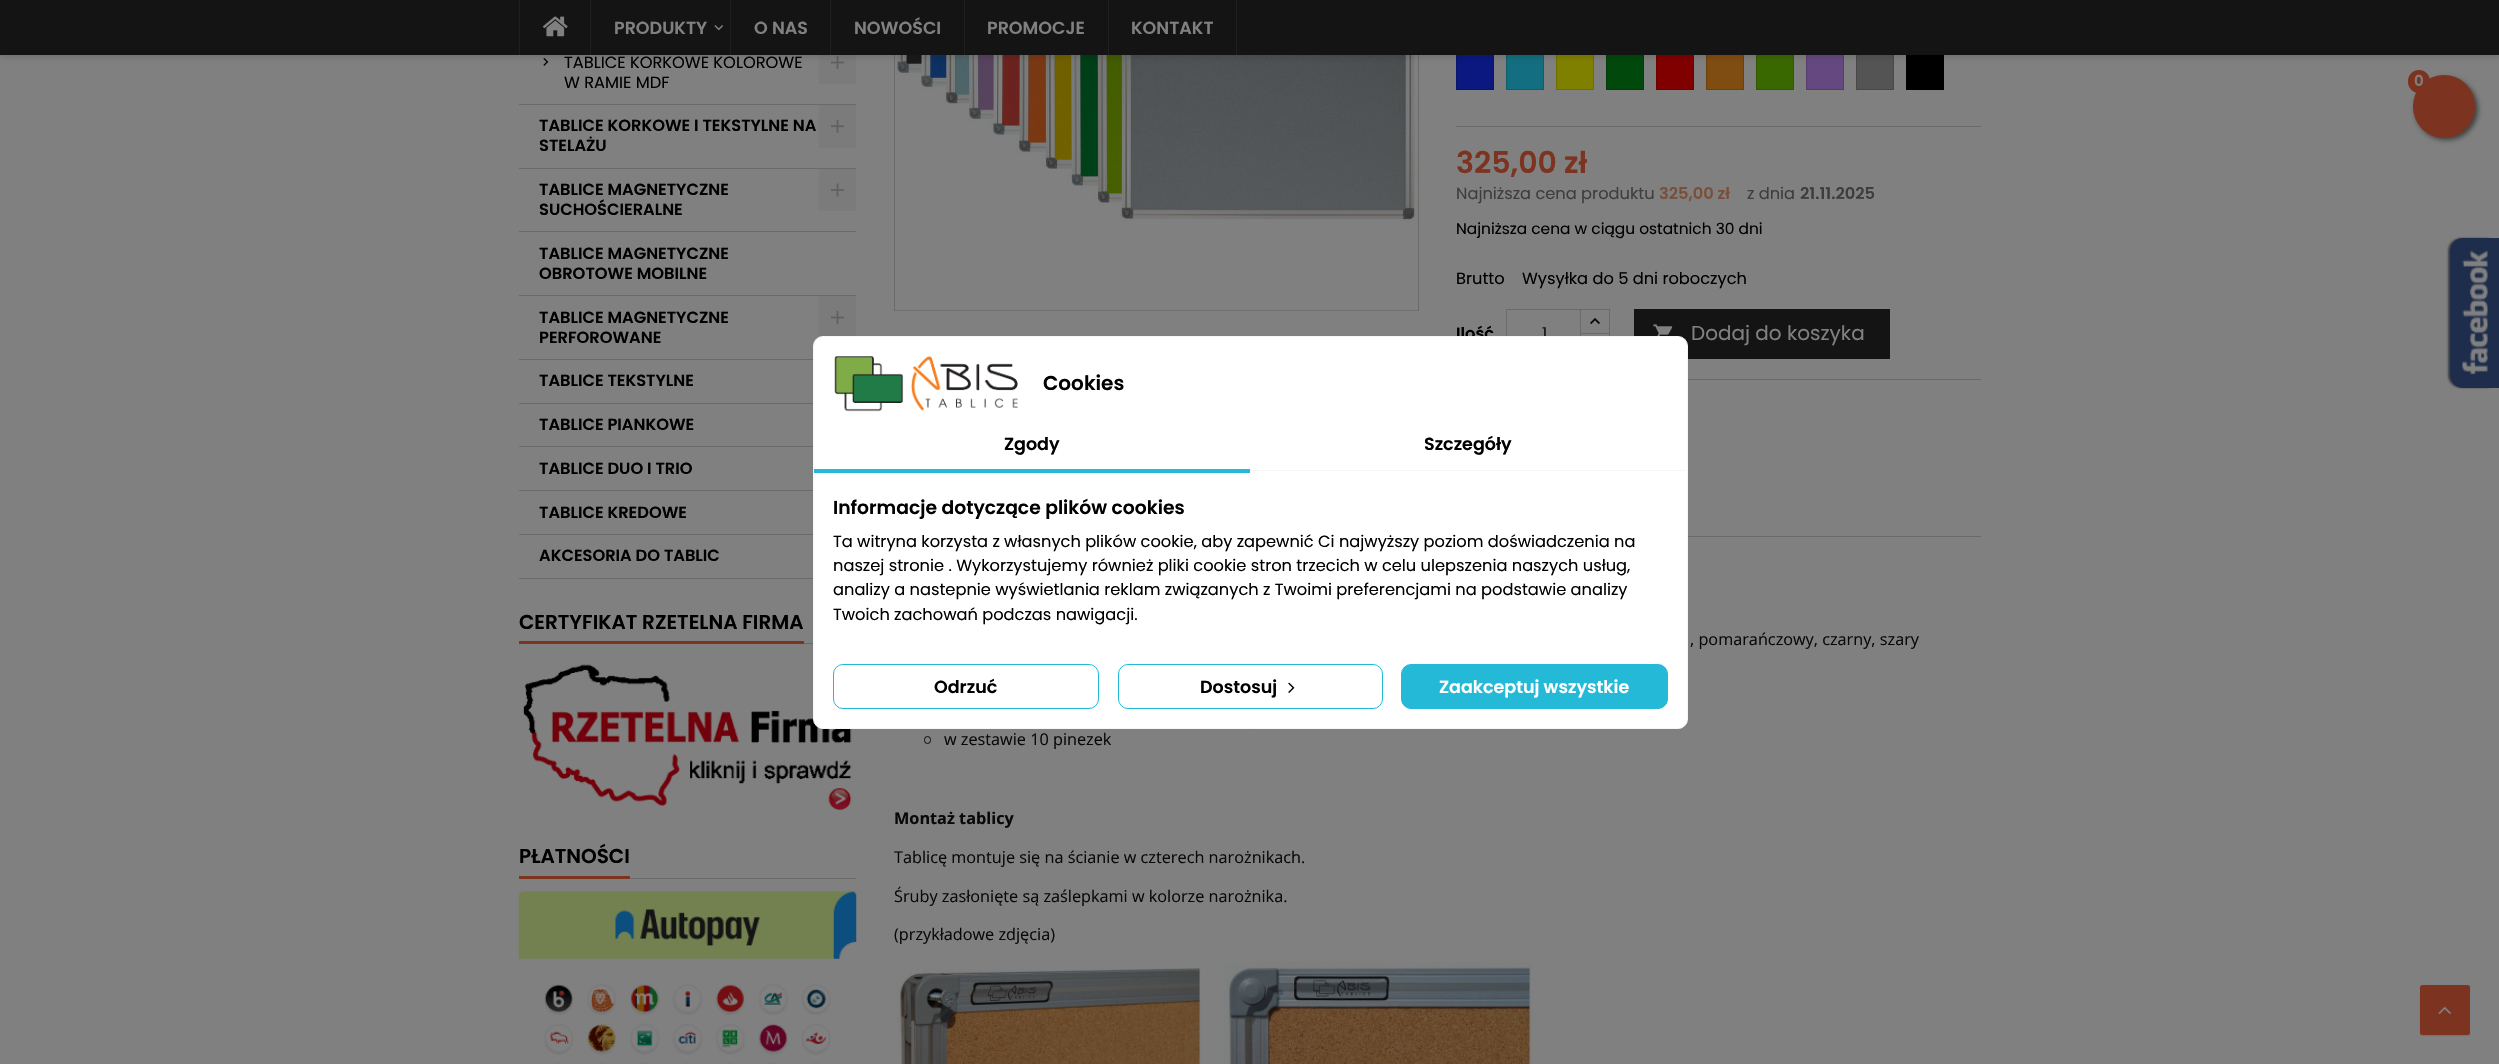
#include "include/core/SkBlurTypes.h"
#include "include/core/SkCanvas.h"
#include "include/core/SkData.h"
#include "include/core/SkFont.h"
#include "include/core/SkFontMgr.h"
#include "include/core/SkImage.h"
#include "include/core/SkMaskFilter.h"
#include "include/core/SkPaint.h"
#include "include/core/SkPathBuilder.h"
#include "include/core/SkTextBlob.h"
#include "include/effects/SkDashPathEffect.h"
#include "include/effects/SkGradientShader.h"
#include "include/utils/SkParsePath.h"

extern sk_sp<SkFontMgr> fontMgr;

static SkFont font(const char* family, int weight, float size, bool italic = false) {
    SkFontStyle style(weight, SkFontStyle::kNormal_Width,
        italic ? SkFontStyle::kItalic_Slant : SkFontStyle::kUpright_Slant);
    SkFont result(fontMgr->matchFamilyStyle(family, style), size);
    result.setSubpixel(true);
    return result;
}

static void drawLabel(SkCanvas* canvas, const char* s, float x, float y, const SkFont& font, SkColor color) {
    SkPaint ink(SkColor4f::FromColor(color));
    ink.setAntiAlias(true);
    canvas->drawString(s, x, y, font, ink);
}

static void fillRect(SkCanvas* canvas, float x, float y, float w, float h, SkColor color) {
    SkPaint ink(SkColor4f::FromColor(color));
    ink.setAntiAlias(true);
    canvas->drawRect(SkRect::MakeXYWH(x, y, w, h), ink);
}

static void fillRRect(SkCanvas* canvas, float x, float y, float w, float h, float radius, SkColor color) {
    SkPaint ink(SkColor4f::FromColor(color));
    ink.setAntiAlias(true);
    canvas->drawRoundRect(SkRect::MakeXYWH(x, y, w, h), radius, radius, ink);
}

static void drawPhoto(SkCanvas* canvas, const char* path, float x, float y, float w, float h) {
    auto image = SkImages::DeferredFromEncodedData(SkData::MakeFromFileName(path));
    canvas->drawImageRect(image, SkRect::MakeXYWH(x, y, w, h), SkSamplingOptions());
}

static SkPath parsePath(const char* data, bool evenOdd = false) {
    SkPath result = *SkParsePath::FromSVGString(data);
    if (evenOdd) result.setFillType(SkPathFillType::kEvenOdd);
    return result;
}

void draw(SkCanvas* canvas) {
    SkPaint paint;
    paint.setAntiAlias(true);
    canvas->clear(0xFF808080);
    drawPhoto(canvas, "assets/img3.png", 543, 57, 6, 9);
    fillRect(canvas, 819, 55, 37, 29, 0xFF7B7B7B);
    drawPhoto(canvas, "assets/img4.png", 831, 56, 13, 13);
    paint.setStroke(true);
    paint.setStrokeWidth(1);
    paint.setColor(0xFF6B6A6A);
    canvas->drawRect(SkRect::MakeXYWH(894.5f, -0.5f, 524, 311), paint);
    drawPhoto(canvas, "assets/img9.png", 895, 55, 523, 256);
    fillRect(canvas, 1457, 55, 36, 34, 0xFF0A1880);
    paint.setColor(0xFF09156D);
    canvas->drawRect(SkRect::MakeXYWH(1456.5f, 53.5f, 37, 36), paint);
    fillRect(canvas, 1507, 55, 36, 34, 0xFF126E80);
    paint.setColor(0xFF105E6D);
    canvas->drawRect(SkRect::MakeXYWH(1506.5f, 53.5f, 37, 36), paint);
    fillRect(canvas, 1557, 55, 36, 34, 0xFF808000);
    paint.setColor(0xFF6D6D00);
    canvas->drawRect(SkRect::MakeXYWH(1556.5f, 53.5f, 37, 36), paint);
    fillRect(canvas, 1607, 55, 36, 34, 0xFF00480C);
    paint.setColor(0xFF003D0A);
    canvas->drawRect(SkRect::MakeXYWH(1606.5f, 53.5f, 37, 36), paint);
    fillRect(canvas, 1657, 55, 36, 34, 0xFF800000);
    paint.setColor(0xFF6D0000);
    canvas->drawRect(SkRect::MakeXYWH(1656.5f, 53.5f, 37, 36), paint);
    fillRect(canvas, 1707, 55, 36, 34, 0xFF804D11);
    paint.setColor(0xFF6D410E);
    canvas->drawRect(SkRect::MakeXYWH(1706.5f, 53.5f, 37, 36), paint);
    fillRect(canvas, 1757, 55, 36, 34, 0xFF3A6800);
    paint.setColor(0xFF325900);
    canvas->drawRect(SkRect::MakeXYWH(1756.5f, 53.5f, 37, 36), paint);
    fillRect(canvas, 1807, 55, 36, 34, 0xFF654880);
    paint.setColor(0xFF563D6D);
    canvas->drawRect(SkRect::MakeXYWH(1806.5f, 53.5f, 37, 36), paint);
    fillRect(canvas, 1857, 55, 36, 34, 0xFF545454);
    paint.setColor(0xFF484848);
    canvas->drawRect(SkRect::MakeXYWH(1856.5f, 53.5f, 37, 36), paint);
    fillRect(canvas, 1906, 55, 38, 35, 0xFF000000);
    paint.setStroke(false);
    paint.setColor(0x1A000000);
    paint.setMaskFilter(SkMaskFilter::MakeBlur(kNormal_SkBlurStyle, 2.5f));
    canvas->drawRect(SkRect::MakeXYWH(0, 3, 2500, 55), paint);
    paint.setMaskFilter(nullptr);
    fillRect(canvas, 0, 0, 2499, 55, 0xFF141414);
    fillRect(canvas, 519, 0, 1, 55, 0xFF1F1F1F);
    drawPhoto(canvas, "assets/img1.png", 542, 16, 26, 21);
    fillRect(canvas, 590, 0, 1, 55, 0xFF1F1F1F);
    SkFont font1 = font("Poppins", 600, 17.5f);
    drawLabel(canvas, "PRODUKTY", 614, 34, font1, 0xFF808080);
    drawPhoto(canvas, "assets/img2.png", 714, 25, 9, 6);
    fillRect(canvas, 730, 0, 1, 55, 0xFF1F1F1F);
    drawLabel(canvas, "O NAS", 754, 34, font1, 0xFF808080);
    fillRect(canvas, 830, 0, 1, 55, 0xFF1F1F1F);
    drawLabel(canvas, "NOWOŚCI", 854, 34, font1, 0xFF808080);
    fillRect(canvas, 964, 0, 1, 55, 0xFF1F1F1F);
    drawLabel(canvas, "PROMOCJE", 987, 34, font1, 0xFF808080);
    fillRect(canvas, 1236, 0, 1, 55, 0xFF1F1F1F);
    fillRect(canvas, 1108, 0, 1, 55, 0xFF1F1F1F);
    drawLabel(canvas, "KONTAKT", 1131, 34, font1, 0xFF808080);
    paint.setColor(0x80000000);
    paint.setMaskFilter(SkMaskFilter::MakeBlur(kNormal_SkBlurStyle, 2.5f));
    canvas->drawRoundRect(SkRect::MakeXYWH(2415, 78, 63, 62), 31, 31, paint);
    paint.setMaskFilter(nullptr);
    fillRRect(canvas, 2413, 75, 62, 63, 31, 0xFF7C331F);
    fillRRect(canvas, 2408, 70, 22, 23, 11, 0xFF7C331F);
    SkFont font2 = font("Poppins", 600, 15);
    drawLabel(canvas, "0", 2414, 86, font2, 0xFF808080);
    fillRect(canvas, 519, 104, 337, 1, 0xFF6B6A6A);
    SkFont font3 = font("Poppins", 400, 16.25f);
    drawLabel(canvas, "TABLICE KORKOWE KOLOROWE", 564, 68, font3, 0xFF000000);
    drawLabel(canvas, "W RAMIE MDF", 564, 88, font3, 0xFF000000);
    fillRect(canvas, 519, 168, 337, 1, 0xFF6B6A6A);
    SkFont font4 = font("Poppins", 600, 16.25f);
    drawLabel(canvas, "TABLICE KORKOWE I TEKSTYLNE NA", 539, 131, font4, 0xFF000000);
    drawLabel(canvas, "STELAŻU", 539, 151, font4, 0xFF000000);
    fillRect(canvas, 819, 105, 37, 43, 0xFF7B7B7B);
    drawPhoto(canvas, "assets/img5.png", 831, 119, 13, 14);
    fillRect(canvas, 519, 231, 337, 1, 0xFF6B6A6A);
    drawLabel(canvas, "TABLICE MAGNETYCZNE", 539, 195, font4, 0xFF000000);
    drawLabel(canvas, "SUCHOŚCIERALNE", 539, 215, font4, 0xFF000000);
    fillRect(canvas, 819, 169, 37, 42, 0xFF7B7B7B);
    drawPhoto(canvas, "assets/img6.png", 831, 183, 13, 14);
    fillRect(canvas, 519, 295, 337, 1, 0xFF6B6A6A);
    drawLabel(canvas, "TABLICE MAGNETYCZNE", 539, 259, font4, 0xFF000000);
    drawLabel(canvas, "OBROTOWE MOBILNE", 539, 279, font4, 0xFF000000);
    fillRect(canvas, 519, 359, 294, 1, 0xFF6B6A6A);
    drawLabel(canvas, "TABLICE MAGNETYCZNE", 539, 323, font4, 0xFF000000);
    drawLabel(canvas, "PERFOROWANE", 539, 343, font4, 0xFF000000);
    fillRect(canvas, 819, 296, 37, 41, 0xFF7B7B7B);
    drawPhoto(canvas, "assets/img4.png", 831, 311, 13, 13);
    fillRect(canvas, 519, 403, 294, 1, 0xFF6B6A6A);
    drawLabel(canvas, "TABLICE TEKSTYLNE", 539, 386, font4, 0xFF000000);
    fillRect(canvas, 519, 446, 294, 1, 0xFF6B6A6A);
    drawLabel(canvas, "TABLICE PIANKOWE", 539, 430, font4, 0xFF000000);
    fillRect(canvas, 519, 490, 294, 1, 0xFF6B6A6A);
    drawLabel(canvas, "TABLICE DUO I TRIO", 539, 474, font4, 0xFF000000);
    fillRect(canvas, 519, 534, 294, 1, 0xFF6B6A6A);
    drawLabel(canvas, "TABLICE KREDOWE", 539, 518, font4, 0xFF000000);
    fillRect(canvas, 519, 578, 294, 1, 0xFF6B6A6A);
    drawLabel(canvas, "AKCESORIA DO TABLIC", 539, 561, font4, 0xFF000000);
    fillRect(canvas, 804, 643, 9, 1, 0xFF6B6A6A);
    fillRect(canvas, 519, 641, 285, 3, 0xFF7C331F);
    SkFont font5 = font("Poppins", 600, 20);
    drawLabel(canvas, "CERTYFIKAT RZETELNA FIRMA", 519, 629, font5, 0xFF000000);
    drawPhoto(canvas, "assets/img7.png", 523, 664, 329, 146);
    fillRect(canvas, 630, 878, 226, 1, 0xFF6B6A6A);
    fillRect(canvas, 519, 876, 111, 3, 0xFF7C331F);
    drawLabel(canvas, "PŁATNOŚCI", 519, 863, font5, 0xFF000000);
    drawPhoto(canvas, "assets/img8.png", 518, 891, 339, 173);
    fillRect(canvas, 1456, 126, 525, 1, 0xFF6B6A6A);
    SkFont font6 = font("Poppins", 600, 30);
    drawLabel(canvas, "325,00 zł", 1456, 173, font6, 0xFF7C331F);
    drawLabel(canvas, "Najniższa cena produktu", 1456, 199, font3, 0xFF3D3D3D);
    drawLabel(canvas, "325,00 zł", 1659, 199, font4, 0xFF7A4F39);
    drawLabel(canvas, "z dnia", 1747, 199, font3, 0xFF3D3D3D);
    drawLabel(canvas, "21.11.2025", 1800, 199, font4, 0xFF3D3D3D);
    SkFont font7 = font("Poppins", 400, 15.4f);
    drawLabel(canvas, "Najniższa cena w ciągu ostatnich 30 dni", 1456, 234, font7, 0xFF000000);
    drawLabel(canvas, "Brutto", 1456, 284, font3, 0xFF000000);
    drawLabel(canvas, "Wysyłka do 5 dni roboczych", 1522, 284, font3, 0xFF000000);
    drawLabel(canvas, "Ilość", 1456, 339, font4, 0xFF000000);
    paint.setStroke(true);
    paint.setColor(0xFF6B6A6A);
    canvas->drawRect(SkRect::MakeXYWH(1580.5f, 309.5f, 29, 25), paint);
    fillRect(canvas, 1581, 334, 28, 1, 0xFF808080);
    canvas->drawRect(SkRect::MakeXYWH(1580.5f, 333.5f, 29, 25), paint);
    canvas->drawRect(SkRect::MakeXYWH(1506.5f, 309.5f, 74, 49), paint);
    drawLabel(canvas, "1", 1542, 339, font3, 0xFF121212);
    drawPhoto(canvas, "assets/img10.png", 1590, 318, 10, 6);
    fillRect(canvas, 1634, 309, 256, 50, 0xFF141414);
    drawPhoto(canvas, "assets/img11.png", 1653, 324, 20, 12);
    SkFont font8 = font("Poppins", 400, 20);
    drawLabel(canvas, "Dodaj do koszyka", 1691, 340, font8, 0xFF808080);
    fillRect(canvas, 1688, 379, 293, 1, 0xFF6B6A6A);
    fillRect(canvas, 1688, 536, 293, 1, 0xFF6B6A6A);
    SkFont font9 = font("Open Sans", 400, 16.25f);
    drawLabel(canvas, ", pomarańczowy, czarny, szary", 1690, 645, font9, 0xFF090909);
    paint.setColor(0xFF090909);
    canvas->drawRoundRect(SkRect::MakeXYWH(924.5f, 736.5f, 6, 7), 3, 3, paint);
    drawLabel(canvas, "w zestawie 10 pinezek", 944, 745, font9, 0xFF090909);
    SkFont font10 = font("Open Sans", 700, 16.25f);
    drawLabel(canvas, "Montaż tablicy", 894, 824, font10, 0xFF090909);
    drawLabel(canvas, "Tablicę montuje się na ścianie w czterech narożnikach.", 894, 863, font9, 0xFF090909);
    drawLabel(canvas, "Śruby zasłonięte są zaślepkami w kolorze narożnika.", 894, 902, font9, 0xFF090909);
    drawLabel(canvas, "(przykładowe zdjęcia)", 894, 940, font9, 0xFF090909);
    drawPhoto(canvas, "assets/img12.png", 896, 968, 305, 96);
    drawPhoto(canvas, "assets/img13.png", 1224, 962, 308, 102);
    paint.setStroke(false);
    paint.setColor(0x80000000);
    paint.setMaskFilter(SkMaskFilter::MakeBlur(kNormal_SkBlurStyle, 1));
    canvas->drawRoundRect(SkRect::MakeXYWH(2448, 238, 50, 150), 13, 13, paint);
    paint.setMaskFilter(nullptr);
    paint.setColor(0xFF1E2D4C);
    canvas->drawPath(parsePath("M2463 238H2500V388H2463C2456 388 2450 382 2450 375V251C2450 244 2456 238 2463 238Z"), paint);
    drawPhoto(canvas, "assets/img14.png", 2462, 250, 26, 125);
    paint.setColor(0xFFFFFFFF);
    canvas->drawRoundRect(SkRect::MakeXYWH(813.5f, 336.5f, 874, 392), 9.5f, 9.5f, paint);
    paint.setStroke(true);
    paint.setColor(0xFFF6F6F6);
    canvas->drawRoundRect(SkRect::MakeXYWH(813.5f, 336.5f, 874, 392), 9.5f, 9.5f, paint);
    drawPhoto(canvas, "assets/img15.png", 834, 356, 184, 56);
    drawLabel(canvas, "Cookies", 1043, 390, font5, 0xFF000000);
    fillRect(canvas, 1250, 470, 436, 1, 0xFFF6F6F6);
    fillRect(canvas, 814, 469, 436, 4, 0xFF24B9D7);
    drawLabel(canvas, "Zgody", 1004, 450, font1, 0xFF000000);
    drawLabel(canvas, "Szczegóły", 1424, 450, font1, 0xFF000000);
    SkFont font11 = font("Poppins", 600, 18.75f);
    drawLabel(canvas, "Informacje dotyczące plików cookies", 833, 514, font11, 0xFF000000);
    drawLabel(canvas, "Ta witryna korzysta z własnych plików cookie, aby zapewnić Ci najwyższy poziom doświadczenia na", 833, 547, font3, 0xFF000000);
    drawLabel(canvas, "naszej stronie . Wykorzystujemy również pliki cookie stron trzecich w celu ulepszenia naszych usług,", 833, 571, font3, 0xFF000000);
    drawLabel(canvas, "analizy a nastepnie wyświetlania reklam związanych z Twoimi preferencjami na podstawie analizy", 833, 595, font3, 0xFF000000);
    drawLabel(canvas, "Twoich zachowań podczas nawigacji.", 833, 620, font3, 0xFF000000);
    paint.setColor(0xFF24B9D7);
    canvas->drawRoundRect(SkRect::MakeXYWH(833.5f, 664.5f, 265, 44), 9.5f, 9.5f, paint);
    drawLabel(canvas, "Odrzuć", 934, 693, font1, 0xFF000000);
    canvas->drawRoundRect(SkRect::MakeXYWH(1118.5f, 664.5f, 264, 44), 9.5f, 9.5f, paint);
    drawLabel(canvas, "Dostosuj", 1200, 693, font1, 0xFF000000);
    drawPhoto(canvas, "assets/img16.png", 1288, 682, 7, 11);
    paint.setStroke(false);
    canvas->drawRoundRect(SkRect::MakeXYWH(1401.5f, 664.5f, 266, 44), 9.5f, 9.5f, paint);
    paint.setStroke(true);
    canvas->drawRoundRect(SkRect::MakeXYWH(1401.5f, 664.5f, 266, 44), 9.5f, 9.5f, paint);
    drawLabel(canvas, "Zaakceptuj wszystkie", 1439, 693, font1, 0xFFFFFFFF);
    paint.setStroke(false);
    paint.setColor(0x1A000000);
    paint.setMaskFilter(SkMaskFilter::MakeBlur(kNormal_SkBlurStyle, 0.5f));
    canvas->drawRoundRect(SkRect::MakeXYWH(2420, 986, 50, 50), 2.5f, 2.5f, paint);
    paint.setMaskFilter(nullptr);
    fillRRect(canvas, 2420, 985, 50, 50, 2.5f, 0xFF7C331F);
    drawPhoto(canvas, "assets/img17.png", 2438, 1006, 13, 9);
}
